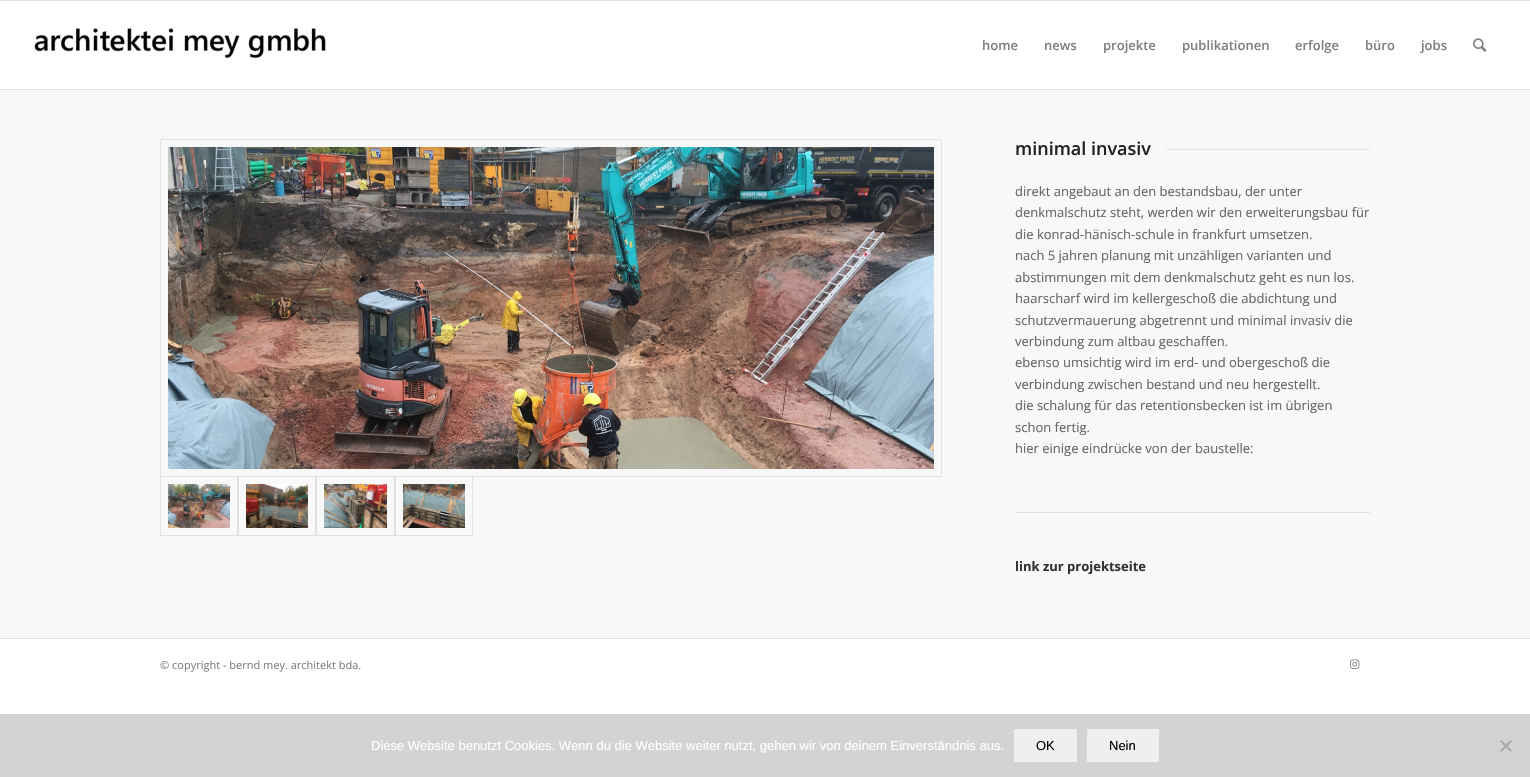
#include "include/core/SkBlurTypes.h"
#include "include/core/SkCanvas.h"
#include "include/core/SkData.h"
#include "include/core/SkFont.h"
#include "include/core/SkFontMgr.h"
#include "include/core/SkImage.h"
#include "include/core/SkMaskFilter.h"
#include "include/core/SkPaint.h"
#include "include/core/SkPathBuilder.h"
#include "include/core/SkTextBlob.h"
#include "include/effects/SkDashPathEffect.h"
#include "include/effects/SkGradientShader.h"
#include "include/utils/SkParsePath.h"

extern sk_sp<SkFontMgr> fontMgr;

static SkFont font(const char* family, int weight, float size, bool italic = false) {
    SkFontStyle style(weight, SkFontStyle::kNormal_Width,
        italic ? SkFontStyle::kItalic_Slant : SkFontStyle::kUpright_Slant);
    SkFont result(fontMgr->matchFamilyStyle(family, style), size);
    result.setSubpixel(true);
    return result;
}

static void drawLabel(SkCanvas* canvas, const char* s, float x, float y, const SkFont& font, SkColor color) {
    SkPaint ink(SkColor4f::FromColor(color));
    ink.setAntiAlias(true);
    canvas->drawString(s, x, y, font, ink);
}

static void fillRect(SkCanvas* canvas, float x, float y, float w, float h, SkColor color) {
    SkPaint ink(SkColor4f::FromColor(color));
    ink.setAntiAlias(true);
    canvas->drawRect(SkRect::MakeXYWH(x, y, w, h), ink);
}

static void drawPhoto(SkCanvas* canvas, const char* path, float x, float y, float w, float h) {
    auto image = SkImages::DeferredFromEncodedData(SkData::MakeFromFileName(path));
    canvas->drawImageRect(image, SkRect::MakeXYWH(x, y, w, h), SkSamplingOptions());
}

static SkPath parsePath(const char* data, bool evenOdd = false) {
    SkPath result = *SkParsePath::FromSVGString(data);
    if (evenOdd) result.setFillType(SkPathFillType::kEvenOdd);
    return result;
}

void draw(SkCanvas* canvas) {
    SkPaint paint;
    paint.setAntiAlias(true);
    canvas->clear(0xFFFFFFFF);
    fillRect(canvas, 0, 0, 1530, 1, 0xFFE1E1E1);
    fillRect(canvas, 0, 89, 1530, 1, 0xFFE1E1E1);
    drawPhoto(canvas, "assets/img1.png", 34, 28, 292, 30);
    SkFont font1 = font("Open Sans", 600, 13);
    drawLabel(canvas, "home", 982, 50, font1, 0xFF808080);
    drawLabel(canvas, "news", 1044, 50, font1, 0xFF808080);
    drawLabel(canvas, "projekte", 1103, 50, font1, 0xFF808080);
    drawLabel(canvas, "publikationen", 1182, 50, font1, 0xFF808080);
    drawLabel(canvas, "erfolge", 1295, 50, font1, 0xFF808080);
    drawLabel(canvas, "büro", 1365, 50, font1, 0xFF808080);
    drawLabel(canvas, "jobs", 1421, 50, font1, 0xFF808080);
    drawPhoto(canvas, "assets/img2.png", 1473, 38, 14, 14);
    fillRect(canvas, 0, 90, 1530, 548, 0xFFF8F8F8);
    paint.setStroke(true);
    paint.setStrokeWidth(1);
    paint.setColor(0xFFE1E1E1);
    canvas->drawRect(SkRect::MakeXYWH(160.5f, 476.5f, 77, 59), paint);
    canvas->drawRect(SkRect::MakeXYWH(238.5f, 476.5f, 77, 59), paint);
    canvas->drawRect(SkRect::MakeXYWH(316.5f, 476.5f, 78, 59), paint);
    canvas->drawRect(SkRect::MakeXYWH(395.5f, 476.5f, 77, 59), paint);
    paint.setStroke(false);
    paint.setColor(0xFFF8F8F8);
    canvas->drawPath(parsePath("M162 139.5H940C941 139.5 941.5 140 941.5 141V476.5H160.5V141C160.5 140 161 139.5 162 139.5Z"), paint);
    paint.setStroke(true);
    paint.setColor(0xFFE1E1E1);
    canvas->drawPath(parsePath("M162 139.5H940C941 139.5 941.5 140 941.5 141V476.5H160.5V141C160.5 140 161 139.5 162 139.5Z"), paint);
    drawPhoto(canvas, "assets/img3.png", 168, 147, 766, 322);
    drawPhoto(canvas, "assets/img4.png", 168, 484, 62, 44);
    drawPhoto(canvas, "assets/img5.png", 246, 484, 62, 44);
    drawPhoto(canvas, "assets/img6.png", 324, 484, 63, 44);
    drawPhoto(canvas, "assets/img7.png", 403, 484, 62, 44);
    SkFont font2 = font("Open Sans", 600, 18);
    drawLabel(canvas, "minimal invasiv", 1015, 155, font2, 0xFF222222);
    fillRect(canvas, 1166, 149, 204, 1, 0xFFE2E2E2);
    SkFont font3 = font("Open Sans", 400, 13);
    drawLabel(canvas, "direkt angebaut an den bestandsbau, der unter", 1015, 196, font3, 0xFF666666);
    drawLabel(canvas, "denkmalschutz steht, werden wir den erweiterungsbau für", 1015, 217, font3, 0xFF666666);
    drawLabel(canvas, "die konrad-hänisch-schule in frankfurt umsetzen.", 1015, 239, font3, 0xFF666666);
    drawLabel(canvas, "nach 5 jahren planung mit unzähligen varianten und", 1015, 260, font3, 0xFF666666);
    drawLabel(canvas, "abstimmungen mit dem denkmalschutz geht es nun los.", 1015, 282, font3, 0xFF666666);
    drawLabel(canvas, "haarscharf wird im kellergeschoß die abdichtung und", 1015, 303, font3, 0xFF666666);
    drawLabel(canvas, "schutzvermauerung abgetrennt und minimal invasiv die", 1015, 325, font3, 0xFF666666);
    drawLabel(canvas, "verbindung zum altbau geschaffen.", 1015, 346, font3, 0xFF666666);
    drawLabel(canvas, "ebenso umsichtig wird im erd- und obergeschoß die", 1015, 367, font3, 0xFF666666);
    drawLabel(canvas, "verbindung zwischen bestand und neu hergestellt.", 1015, 389, font3, 0xFF666666);
    drawLabel(canvas, "die schalung für das retentionsbecken ist im übrigen", 1015, 410, font3, 0xFF666666);
    drawLabel(canvas, "schon fertig.", 1015, 432, font3, 0xFF666666);
    drawLabel(canvas, "hier einige eindrücke von der baustelle:", 1015, 453, font3, 0xFF666666);
    fillRect(canvas, 1015, 512, 355, 1, 0xFFE1E1E1);
    SkFont font4 = font("Open Sans", 700, 13);
    drawLabel(canvas, "link zur projektseite", 1015, 571, font4, 0xFF333333);
    fillRect(canvas, 0, 638, 1530, 1, 0xFFE1E1E1);
    SkFont font5 = font("Open Sans", 400, 11);
    drawLabel(canvas, "© copyright - bernd mey. architekt bda.", 160, 669, font5, 0xFF808080);
    drawPhoto(canvas, "assets/img8.png", 1350, 659, 10, 10);
    fillRect(canvas, 0, 714, 1530, 63, 0xFFD3D3D3);
    SkFont font6 = font("Liberation Sans", 400, 13);
    drawLabel(canvas, "Diese Website benutzt Cookies. Wenn du die Website weiter nutzt, gehen wir von deinem Einverständnis aus.", 371, 750, font6, 0xFFFFFFFF);
    fillRect(canvas, 1014, 729, 63, 33, 0xFFEFEFEF);
    drawLabel(canvas, "OK", 1036, 750, font6, 0xFF000000);
    fillRect(canvas, 1087, 729, 72, 33, 0xFFEFEFEF);
    drawLabel(canvas, "Nein", 1109, 750, font6, 0xFF000000);
    paint.setStroke(false);
    paint.setColor(0xFFAAAAAA);
    canvas->drawPath(parsePath("M1510.5 740L1512 741.5L1501.5 752L1500 750.5Z"), paint);
    canvas->drawPath(parsePath("M1500 741.5L1501.5 740L1512 750.5L1510.5 752Z"), paint);
}
